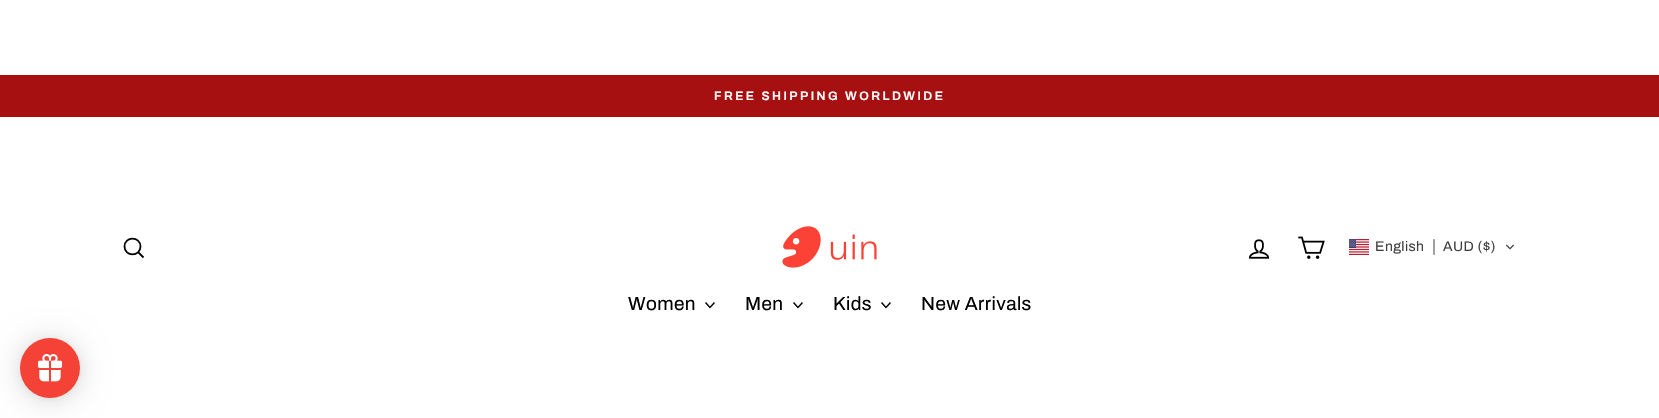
#include "include/core/SkBlurTypes.h"
#include "include/core/SkCanvas.h"
#include "include/core/SkData.h"
#include "include/core/SkFont.h"
#include "include/core/SkFontMgr.h"
#include "include/core/SkImage.h"
#include "include/core/SkMaskFilter.h"
#include "include/core/SkPaint.h"
#include "include/core/SkPathBuilder.h"
#include "include/core/SkTextBlob.h"
#include "include/effects/SkDashPathEffect.h"
#include "include/effects/SkGradientShader.h"
#include "include/utils/SkParsePath.h"

extern sk_sp<SkFontMgr> fontMgr;

static SkFont font(const char* family, int weight, float size, bool italic = false) {
    SkFontStyle style(weight, SkFontStyle::kNormal_Width,
        italic ? SkFontStyle::kItalic_Slant : SkFontStyle::kUpright_Slant);
    SkFont result(fontMgr->matchFamilyStyle(family, style), size);
    result.setSubpixel(true);
    return result;
}

static void drawTracked(SkCanvas* canvas, const char* s, float x, float y, const SkFont& font, const SkPaint& ink, float letter, float word) {
    std::vector<SkGlyphID> glyphs(font.countText(s, strlen(s), SkTextEncoding::kUTF8));
    std::vector<float> xs(glyphs.size());
    font.textToGlyphs(s, strlen(s), SkTextEncoding::kUTF8, glyphs);
    font.getXPos(glyphs, xs, x);
    float extra = 0;
    for (size_t i = 0; i < glyphs.size(); i++) {
        xs[i] += extra;
        extra += letter + word * (glyphs[i] == font.unicharToGlyph(' '));
    }
    canvas->drawTextBlob(SkTextBlob::MakeFromPosHGlyphs(glyphs, xs, y, font), 0, 0, ink);
}

static void fillRect(SkCanvas* canvas, float x, float y, float w, float h, SkColor color) {
    SkPaint ink(SkColor4f::FromColor(color));
    ink.setAntiAlias(true);
    canvas->drawRect(SkRect::MakeXYWH(x, y, w, h), ink);
}

static void drawPhoto(SkCanvas* canvas, const char* path, float x, float y, float w, float h) {
    auto image = SkImages::DeferredFromEncodedData(SkData::MakeFromFileName(path));
    canvas->drawImageRect(image, SkRect::MakeXYWH(x, y, w, h), SkSamplingOptions());
}

static SkPath parsePath(const char* data, bool evenOdd = false) {
    SkPath result = *SkParsePath::FromSVGString(data);
    if (evenOdd) result.setFillType(SkPathFillType::kEvenOdd);
    return result;
}

void draw(SkCanvas* canvas) {
    SkPaint paint;
    paint.setAntiAlias(true);
    canvas->clear(0xFFFFFFFF);
    fillRect(canvas, 0, 75, 1659, 42, 0xFFA71010);
    SkFont font1 = font("Archivo", 600, 12.25f);
    paint.setColor(0xFFFFFFFF);
    drawTracked(canvas, "FREE SHIPPING WORLDWIDE", 714, 100, font1, paint, 2.45f, 0);
    paint.setStroke(true);
    paint.setStrokeWidth(1.8f);
    paint.setColor(0xFF000000);
    canvas->drawPath(parsePath("M140.5 246.5C140.5 257 124.5 257 124.5 246.5C124.5 236 140.5 236 140.5 246.5ZM143.5 257.5L138.5 252.5"), paint);
    drawPhoto(canvas, "assets/img1.png", 782, 226, 95, 42);
    drawPhoto(canvas, "assets/img2.png", 1248, 239, 22, 20);
    drawPhoto(canvas, "assets/img3.png", 1298, 236, 27, 23);
    drawPhoto(canvas, "assets/img4.png", 1349, 239, 20, 16);
    SkFont font2 = font("Archivo", 400, 14);
    paint.setStroke(false);
    paint.setColor(0xFF404040);
    drawTracked(canvas, "English", 1375, 251, font2, paint, 0.4f, 0);
    drawPhoto(canvas, "assets/img5.png", 1433, 239, 2, 16);
    drawTracked(canvas, "AUD ($)", 1443, 251, font2, paint, 0.4f, 0);
    drawPhoto(canvas, "assets/img6.png", 1506, 244, 8, 6);
    SkFont font3 = font("Archivo", 400, 19);
    paint.setColor(0xFF000000);
    drawTracked(canvas, "Women", 628, 310, font3, paint, 0.4f, 0);
    paint.setStroke(true);
    paint.setStrokeWidth(1.4f);
    canvas->drawPath(parsePath("M705.5 302.5L710 307.5L714.5 302.5"), paint);
    paint.setStroke(false);
    drawTracked(canvas, "Men", 745, 310, font3, paint, 0.4f, 0);
    paint.setStroke(true);
    canvas->drawPath(parsePath("M793.5 302.5L798 307.5L802.5 302.5"), paint);
    paint.setStroke(false);
    drawTracked(canvas, "Kids", 833, 310, font3, paint, 0.4f, 0);
    paint.setStroke(true);
    canvas->drawPath(parsePath("M881.5 302.5L886 307.5L890.5 302.5"), paint);
    paint.setStroke(false);
    drawTracked(canvas, "New Arrivals", 921, 310, font3, paint, 0.4f, 0);
    paint.setColor(0x26000000);
    paint.setMaskFilter(SkMaskFilter::MakeBlur(kNormal_SkBlurStyle, 15));
    canvas->drawRoundRect(SkRect::MakeXYWH(20, 340, 60, 60), 30, 30, paint);
    paint.setMaskFilter(nullptr);
    paint.setColor(0x0D000000);
    paint.setMaskFilter(SkMaskFilter::MakeBlur(kNormal_SkBlurStyle, 3));
    canvas->drawRoundRect(SkRect::MakeXYWH(20, 339, 60, 60), 30, 30, paint);
    paint.setMaskFilter(nullptr);
    paint.setColor(0xFFF44336);
    canvas->drawCircle(50, 368, 30, paint);
    drawPhoto(canvas, "assets/img7.png", 38, 354, 24, 28);
}
